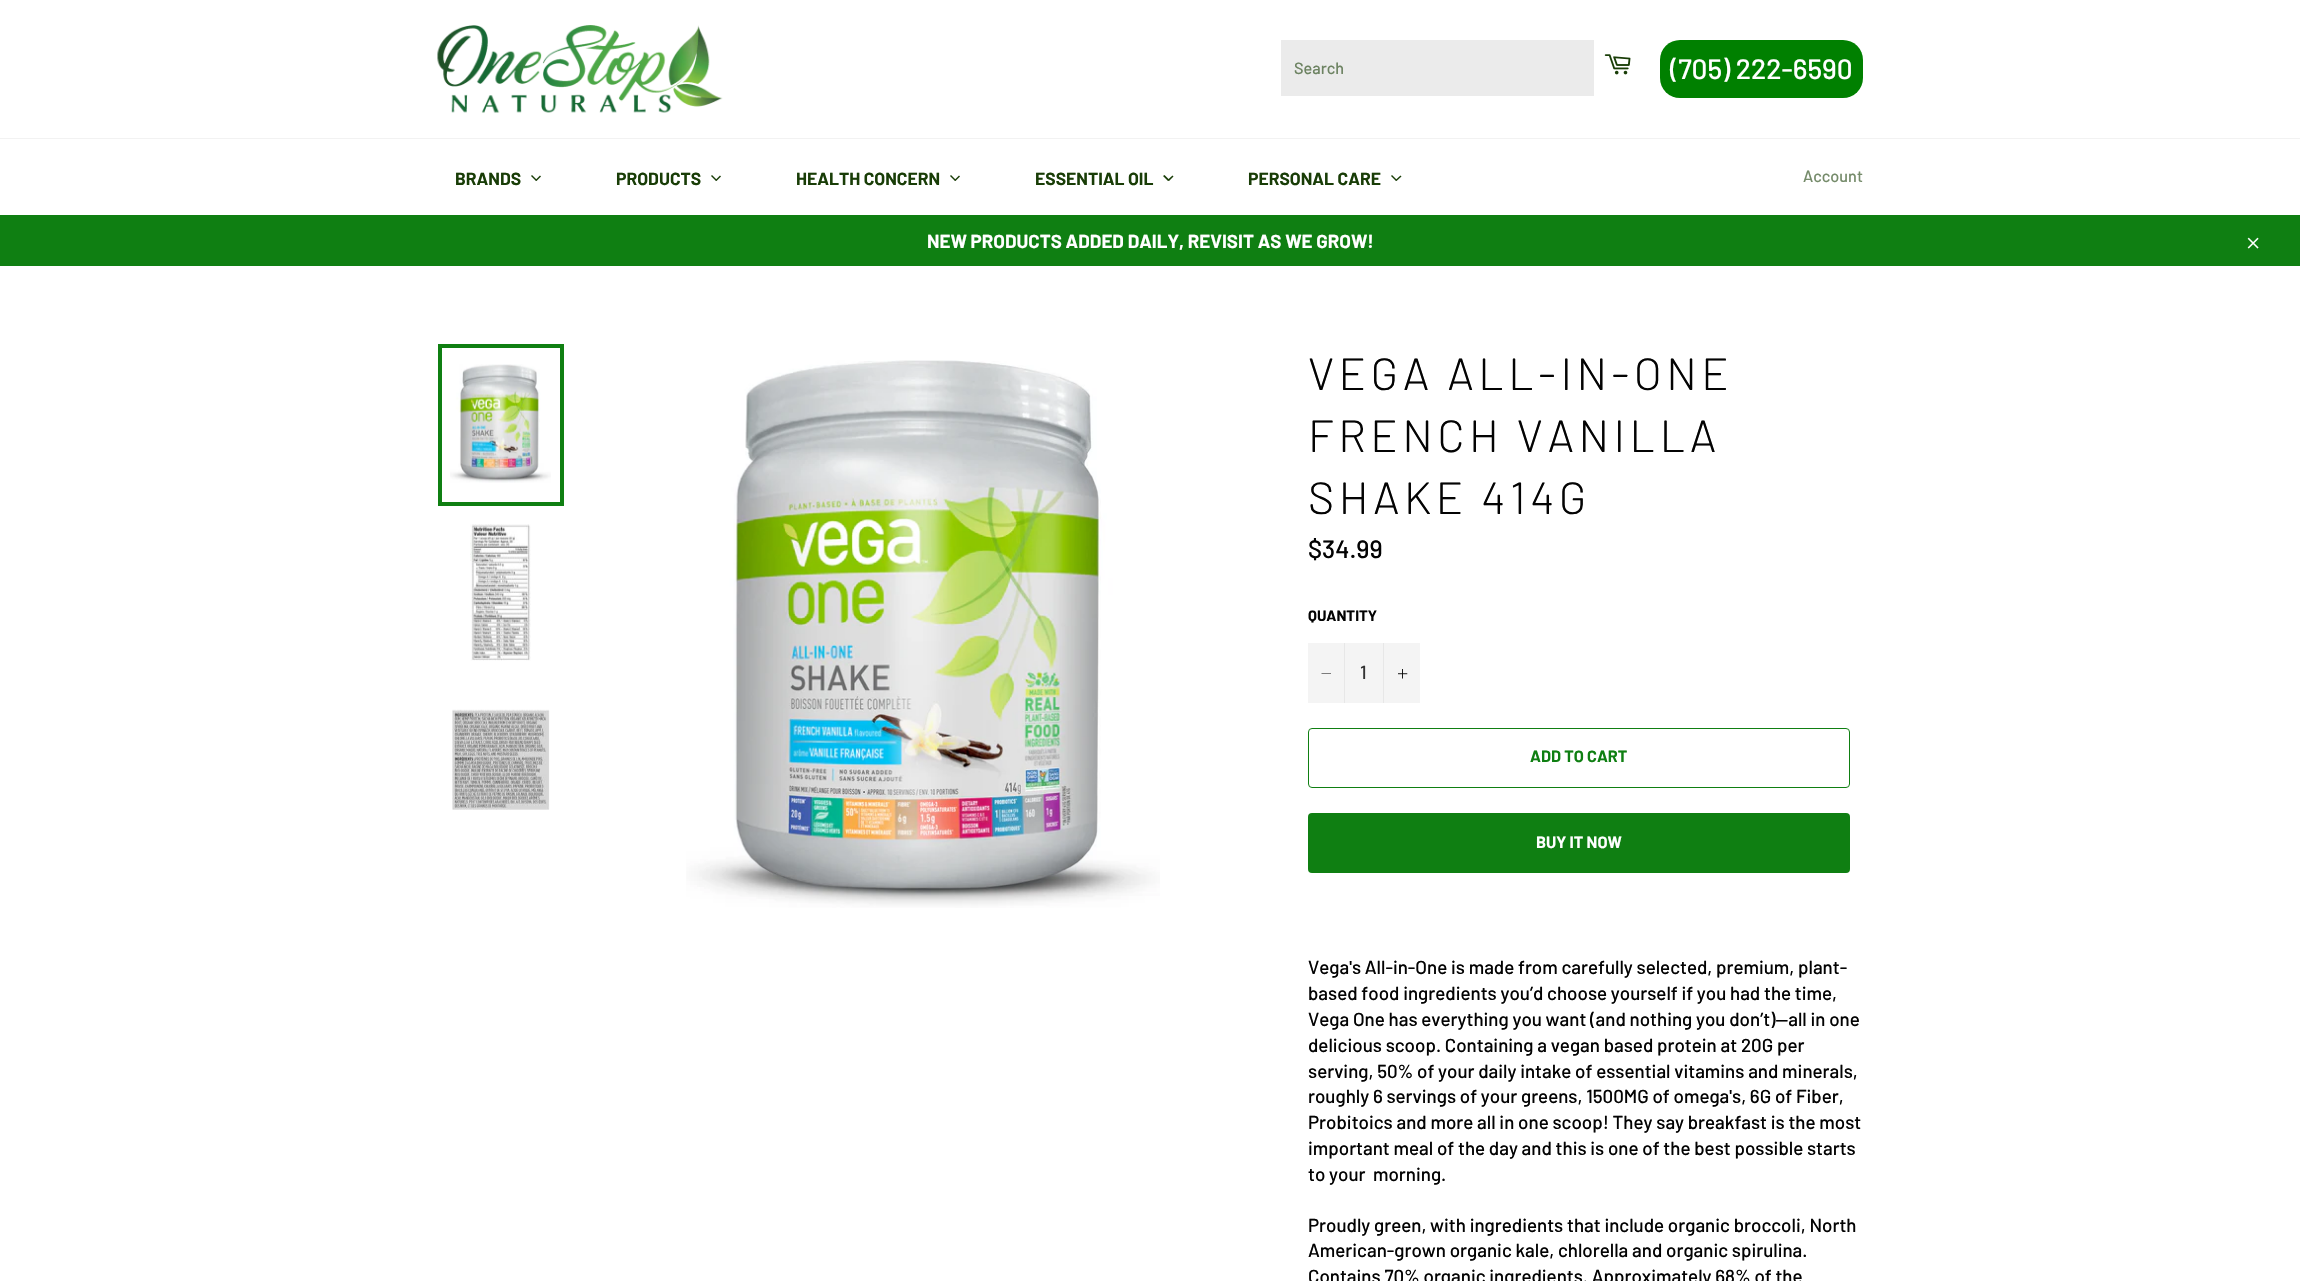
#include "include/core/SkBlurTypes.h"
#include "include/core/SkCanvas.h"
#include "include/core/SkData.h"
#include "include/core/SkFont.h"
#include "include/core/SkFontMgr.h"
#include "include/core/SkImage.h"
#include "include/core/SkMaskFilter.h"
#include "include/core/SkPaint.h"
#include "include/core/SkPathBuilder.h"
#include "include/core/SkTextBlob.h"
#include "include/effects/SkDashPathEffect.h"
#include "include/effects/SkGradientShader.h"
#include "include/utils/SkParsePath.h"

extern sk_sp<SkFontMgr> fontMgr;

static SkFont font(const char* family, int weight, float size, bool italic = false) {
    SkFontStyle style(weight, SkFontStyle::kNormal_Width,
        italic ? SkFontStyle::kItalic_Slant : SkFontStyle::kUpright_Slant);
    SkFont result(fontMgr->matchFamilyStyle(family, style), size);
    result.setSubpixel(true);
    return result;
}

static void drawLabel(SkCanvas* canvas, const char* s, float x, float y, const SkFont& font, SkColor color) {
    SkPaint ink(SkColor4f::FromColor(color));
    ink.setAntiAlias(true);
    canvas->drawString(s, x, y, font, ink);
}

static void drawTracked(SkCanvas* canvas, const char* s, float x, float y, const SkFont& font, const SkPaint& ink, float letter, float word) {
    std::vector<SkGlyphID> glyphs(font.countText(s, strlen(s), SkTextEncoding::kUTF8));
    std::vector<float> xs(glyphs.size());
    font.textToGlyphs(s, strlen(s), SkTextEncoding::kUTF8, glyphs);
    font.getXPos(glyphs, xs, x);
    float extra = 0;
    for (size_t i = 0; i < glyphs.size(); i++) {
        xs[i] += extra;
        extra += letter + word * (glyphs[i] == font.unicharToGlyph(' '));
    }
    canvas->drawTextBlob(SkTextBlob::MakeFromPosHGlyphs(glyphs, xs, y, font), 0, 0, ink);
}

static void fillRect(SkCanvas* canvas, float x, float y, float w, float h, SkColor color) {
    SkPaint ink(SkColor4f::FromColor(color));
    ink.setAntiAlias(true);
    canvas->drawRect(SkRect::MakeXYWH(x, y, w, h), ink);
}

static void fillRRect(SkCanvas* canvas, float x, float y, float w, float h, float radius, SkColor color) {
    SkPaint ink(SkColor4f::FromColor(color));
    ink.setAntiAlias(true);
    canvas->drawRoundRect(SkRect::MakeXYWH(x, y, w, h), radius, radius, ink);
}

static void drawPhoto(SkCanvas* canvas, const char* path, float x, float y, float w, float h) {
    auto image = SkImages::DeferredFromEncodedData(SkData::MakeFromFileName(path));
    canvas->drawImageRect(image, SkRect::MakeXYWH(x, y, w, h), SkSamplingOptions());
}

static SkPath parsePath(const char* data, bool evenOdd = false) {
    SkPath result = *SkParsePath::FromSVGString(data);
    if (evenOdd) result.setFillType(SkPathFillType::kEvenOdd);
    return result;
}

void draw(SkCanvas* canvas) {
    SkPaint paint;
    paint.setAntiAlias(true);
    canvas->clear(0xFFFFFFFF);
    drawPhoto(canvas, "assets/img1.png", 437, 25, 286, 88);
    fillRect(canvas, 1281, 40, 313, 56, 0xFFEBEBEB);
    SkFont font1 = font("Barlow", 500, 16.25f);
    drawLabel(canvas, "Search", 1294, 74, font1, 0xFF6D8362);
    drawPhoto(canvas, "assets/img2.png", 1604, 54, 27, 21);
    fillRRect(canvas, 1660, 40, 203, 58, 20, 0xFF008000);
    SkFont font2 = font("Barlow", 500, 28);
    drawLabel(canvas, "(705) 222-6590", 1670, 79, font2, 0xFFFFFFFF);
    fillRect(canvas, 0, 138, 2300, 1, 0xFFF2F2F2);
    SkFont font3 = font("Barlow", 700, 17.5f);
    drawLabel(canvas, "BRANDS", 455, 185, font3, 0xFF193D07);
    paint.setColor(0xFF193D07);
    canvas->drawPath(parsePath("M540 175.5L541 176.5L536.5 181L535.5 180Z"), paint);
    canvas->drawPath(parsePath("M532 175L537 180L536 181L531 176Z"), paint);
    drawLabel(canvas, "PRODUCTS", 616, 185, font3, 0xFF193D07);
    canvas->drawPath(parsePath("M720 175.5L721 176.5L716.5 181L715.5 180Z"), paint);
    canvas->drawPath(parsePath("M712 175L717 180L716 181L711 176Z"), paint);
    drawLabel(canvas, "HEALTH CONCERN", 796, 185, font3, 0xFF193D07);
    canvas->drawPath(parsePath("M959 175.5L960 176.5L955.5 181L954.5 180Z"), paint);
    canvas->drawPath(parsePath("M951 175L956 180L955 181L950 176Z"), paint);
    drawLabel(canvas, "ESSENTIAL OIL", 1035, 185, font3, 0xFF193D07);
    canvas->drawPath(parsePath("M1172.5 175.5L1173.5 176.5L1169 181L1167.5 180Z"), paint);
    canvas->drawPath(parsePath("M1164.5 175L1169.5 180L1168 181L1163 176Z"), paint);
    drawLabel(canvas, "PERSONAL CARE", 1248, 185, font3, 0xFF193D07);
    canvas->drawPath(parsePath("M1400.5 175.5L1401.5 176.5L1396.5 181L1395.5 180Z"), paint);
    canvas->drawPath(parsePath("M1392 175L1397 180L1396 181L1391 176Z"), paint);
    drawLabel(canvas, "Account", 1803, 182, font1, 0xFF758B6A);
    fillRect(canvas, 0, 215, 2300, 51, 0xFF0F7F12);
    SkFont font4 = font("Barlow", 700, 18.75f);
    drawLabel(canvas, "NEW PRODUCTS ADDED DAILY, REVISIT AS WE GROW!", 927, 248, font4, 0xFFFFFFFF);
    drawPhoto(canvas, "assets/img3.png", 2247, 237, 12, 12);
    drawPhoto(canvas, "assets/img4.png", 450, 364, 101, 119);
    paint.setStroke(true);
    paint.setStrokeWidth(4);
    paint.setColor(0xFF0F7F12);
    canvas->drawRect(SkRect::MakeXYWH(440, 346, 122, 158), paint);
    drawPhoto(canvas, "assets/img5.png", 470, 524, 61, 137);
    drawPhoto(canvas, "assets/img6.png", 452, 709, 98, 101);
    drawPhoto(canvas, "assets/img7.png", 686, 360, 474, 548);
    SkFont font5 = font("Barlow", 300, 45);
    paint.setStroke(false);
    paint.setColor(0xFF030303);
    drawTracked(canvas, "VEGA ALL-IN-ONE", 1308, 390, font5, paint, 4.5f, 0);
    drawTracked(canvas, "FRENCH VANILLA", 1308, 452, font5, paint, 4.5f, 0);
    drawTracked(canvas, "SHAKE 414G", 1308, 514, font5, paint, 4.5f, 0);
    SkFont font6 = font("Barlow", 500, 25);
    drawLabel(canvas, "$34.99", 1308, 558, font6, 0xFF030303);
    SkFont font7 = font("Barlow", 700, 15);
    drawLabel(canvas, "QUANTITY", 1308, 621, font7, 0xFF030303);
    fillRect(canvas, 1308, 643, 112, 60, 0xFFF4F4F4);
    fillRect(canvas, 1344, 643, 1, 60, 0xFFE7E7E7);
    canvas->drawPath(parsePath("M1331 673.5V674H1321.5V673.5Z", true), paint);
    SkFont font8 = font("Barlow", 500, 18.75f);
    drawLabel(canvas, "1", 1360, 679, font8, 0xFF333333);
    fillRect(canvas, 1383, 643, 1, 60, 0xFFE7E7E7);
    drawPhoto(canvas, "assets/img8.png", 1398, 669, 10, 10);
    paint.setStroke(true);
    paint.setStrokeWidth(1);
    paint.setColor(0xFF0F7F12);
    canvas->drawRoundRect(SkRect::MakeXYWH(1308.5f, 728.5f, 541, 59), 3.5f, 3.5f, paint);
    SkFont font9 = font("Barlow", 700, 16.25f);
    drawLabel(canvas, "ADD TO CART", 1530, 762, font9, 0xFF0F7F12);
    fillRRect(canvas, 1308, 813, 542, 60, 4, 0xFF0F7F12);
    drawLabel(canvas, "BUY IT NOW", 1536, 848, font9, 0xFFFFFFFF);
    drawLabel(canvas, "Vega's All-in-One is made from carefully selected, premium, plant-", 1308, 974, font8, 0xFF030303);
    drawLabel(canvas, "based food ingredients you’d choose yourself if you had the time,", 1308, 1000, font8, 0xFF030303);
    drawLabel(canvas, "Vega One has everything you want (and nothing you don’t)—all in one", 1308, 1026, font8, 0xFF030303);
    drawLabel(canvas, "delicious scoop. Containing a vegan based protein at 20G per", 1308, 1052, font8, 0xFF030303);
    drawLabel(canvas, "serving, 50% of your daily intake of essential vitamins and minerals,", 1308, 1078, font8, 0xFF030303);
    drawLabel(canvas, "roughly 6 servings of your greens, 1500MG of omega's, 6G of Fiber,", 1308, 1103, font8, 0xFF030303);
    drawLabel(canvas, "Probitoics and more all in one scoop! They say breakfast is the most", 1308, 1129, font8, 0xFF030303);
    drawLabel(canvas, "important meal of the day and this is one of the best possible starts", 1308, 1155, font8, 0xFF030303);
    drawLabel(canvas, "to your  morning.", 1308, 1181, font8, 0xFF030303);
    drawLabel(canvas, "Proudly green, with ingredients that include organic broccoli, North", 1308, 1232, font8, 0xFF030303);
    drawLabel(canvas, "American-grown organic kale, chlorella and organic spirulina.", 1308, 1257, font8, 0xFF030303);
    drawLabel(canvas, "Contains 70% organic ingredients. Approximately 68% of the", 1308, 1283, font8, 0xFF030303);
}
